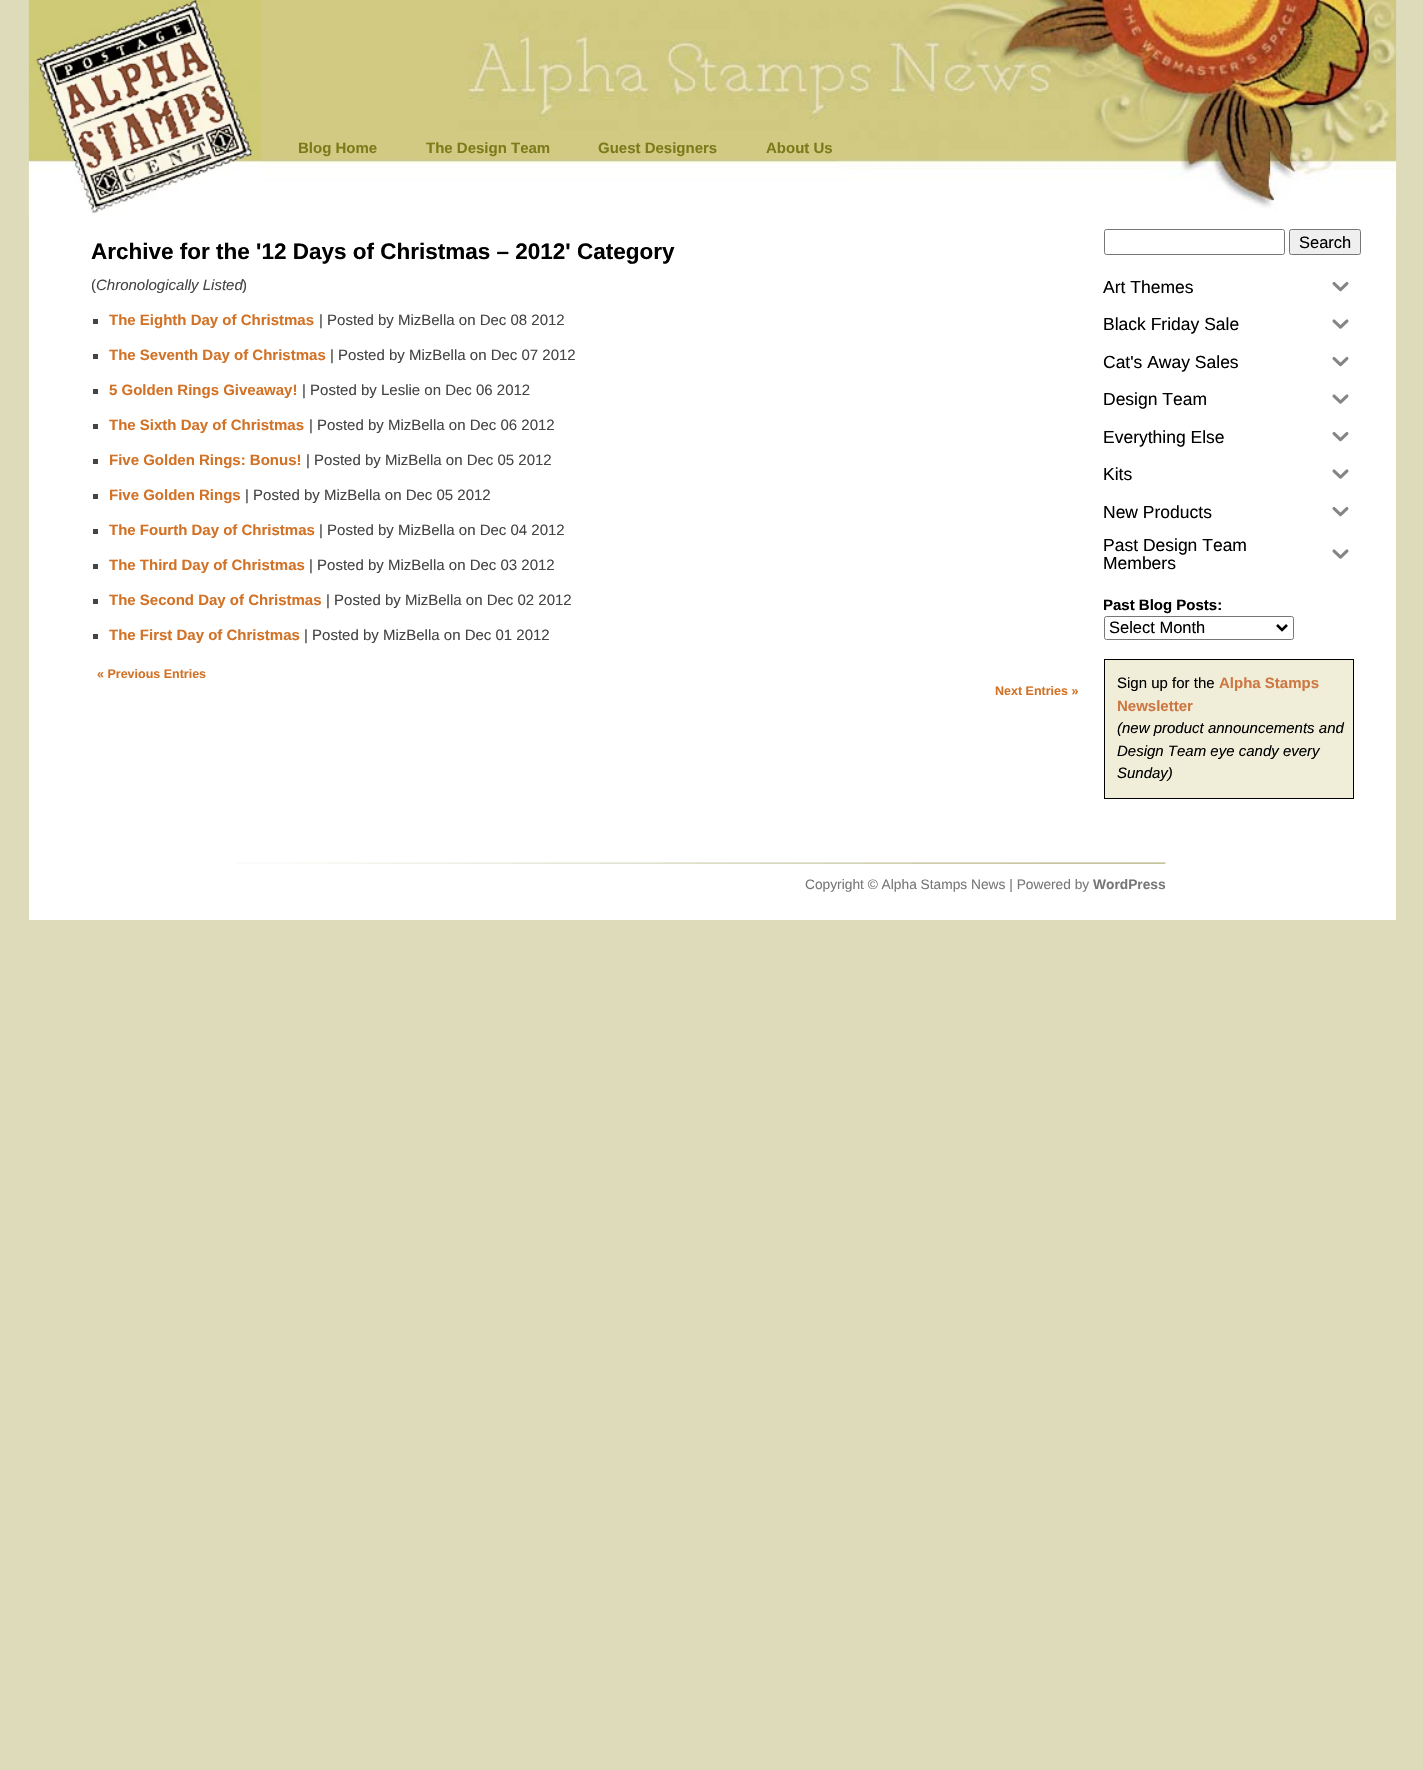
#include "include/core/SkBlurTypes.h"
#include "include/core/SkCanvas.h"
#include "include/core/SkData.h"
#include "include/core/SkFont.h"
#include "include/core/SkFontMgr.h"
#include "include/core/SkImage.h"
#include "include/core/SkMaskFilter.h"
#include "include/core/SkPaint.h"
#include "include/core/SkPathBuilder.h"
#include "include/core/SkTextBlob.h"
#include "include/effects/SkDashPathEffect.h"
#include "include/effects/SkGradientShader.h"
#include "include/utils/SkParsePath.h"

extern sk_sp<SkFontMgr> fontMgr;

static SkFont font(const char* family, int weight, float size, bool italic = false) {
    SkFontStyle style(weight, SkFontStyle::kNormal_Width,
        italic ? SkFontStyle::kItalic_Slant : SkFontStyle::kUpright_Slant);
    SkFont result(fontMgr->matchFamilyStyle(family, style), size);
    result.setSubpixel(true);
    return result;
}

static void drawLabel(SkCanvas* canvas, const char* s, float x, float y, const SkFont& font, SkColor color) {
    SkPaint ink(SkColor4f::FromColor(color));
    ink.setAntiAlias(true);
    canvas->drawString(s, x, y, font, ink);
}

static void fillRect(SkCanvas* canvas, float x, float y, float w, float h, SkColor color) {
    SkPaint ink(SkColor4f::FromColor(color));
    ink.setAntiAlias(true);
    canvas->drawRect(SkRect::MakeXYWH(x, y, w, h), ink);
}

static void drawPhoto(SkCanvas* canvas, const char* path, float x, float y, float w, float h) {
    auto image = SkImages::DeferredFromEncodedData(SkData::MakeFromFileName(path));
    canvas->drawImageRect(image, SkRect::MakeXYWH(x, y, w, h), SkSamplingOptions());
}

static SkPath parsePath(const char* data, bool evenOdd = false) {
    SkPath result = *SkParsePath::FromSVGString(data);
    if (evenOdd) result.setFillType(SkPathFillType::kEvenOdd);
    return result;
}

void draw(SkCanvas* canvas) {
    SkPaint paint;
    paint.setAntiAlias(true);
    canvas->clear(0xFFDDDBBA);
    fillRect(canvas, 29, 216, 1367, 704, 0xFFFFFFFF);
    drawPhoto(canvas, "assets/img1.png", 28, 0, 1369, 216);
    drawPhoto(canvas, "assets/img2.png", 28, 0, 234, 216);
    SkFont font1 = font("Liberation Sans", 700, 15);
    drawLabel(canvas, "Blog Home", 298, 153, font1, 0xFF7B7B1B);
    fillRect(canvas, 280, 169, 116, 2, 0xFFFFFFFF);
    drawLabel(canvas, "The Design Team", 426, 153, font1, 0xFF7B7B1B);
    fillRect(canvas, 408, 169, 161, 2, 0xFFFFFFFF);
    drawLabel(canvas, "Guest Designers", 598, 153, font1, 0xFF7B7B1B);
    fillRect(canvas, 580, 169, 156, 2, 0xFFFFFFFF);
    drawLabel(canvas, "About Us", 766, 153, font1, 0xFF7B7B1B);
    fillRect(canvas, 748, 169, 103, 2, 0xFFFFFFFF);
    SkFont font2 = font("Liberation Sans", 700, 22.5f);
    drawLabel(canvas, "Archive for the '12 Days of Christmas – 2012' Category", 91, 259, font2, 0xFF000000);
    SkFont font3 = font("Liberation Sans", 400, 15);
    drawLabel(canvas, "(", 91, 290, font3, 0xFF454545);
    SkFont font4 = font("Liberation Sans", 400, 15, true);
    drawLabel(canvas, "Chronologically Listed", 96, 290, font4, 0xFF454545);
    drawLabel(canvas, ")", 242, 290, font3, 0xFF454545);
    fillRect(canvas, 93, 319, 5, 5, 0xFF454545);
    drawLabel(canvas, "The Eighth Day of Christmas", 109, 325, font1, 0xFFD17226);
    drawLabel(canvas, "| Posted by MizBella on Dec 08 2012", 319, 325, font3, 0xFF454545);
    fillRect(canvas, 93, 354, 5, 5, 0xFF454545);
    drawLabel(canvas, "The Seventh Day of Christmas", 109, 360, font1, 0xFFD17226);
    drawLabel(canvas, "| Posted by MizBella on Dec 07 2012", 330, 360, font3, 0xFF454545);
    fillRect(canvas, 93, 389, 5, 5, 0xFF454545);
    drawLabel(canvas, "5 Golden Rings Giveaway!", 109, 395, font1, 0xFFD17226);
    drawLabel(canvas, "| Posted by Leslie on Dec 06 2012", 302, 395, font3, 0xFF454545);
    fillRect(canvas, 93, 424, 5, 5, 0xFF454545);
    drawLabel(canvas, "The Sixth Day of Christmas", 109, 430, font1, 0xFFD17226);
    drawLabel(canvas, "| Posted by MizBella on Dec 06 2012", 309, 430, font3, 0xFF454545);
    fillRect(canvas, 93, 459, 5, 5, 0xFF454545);
    drawLabel(canvas, "Five Golden Rings: Bonus!", 109, 465, font1, 0xFFD17226);
    drawLabel(canvas, "| Posted by MizBella on Dec 05 2012", 306, 465, font3, 0xFF454545);
    fillRect(canvas, 93, 494, 5, 5, 0xFF454545);
    drawLabel(canvas, "Five Golden Rings", 109, 500, font1, 0xFFD17226);
    drawLabel(canvas, "| Posted by MizBella on Dec 05 2012", 245, 500, font3, 0xFF454545);
    fillRect(canvas, 93, 529, 5, 5, 0xFF454545);
    drawLabel(canvas, "The Fourth Day of Christmas", 109, 535, font1, 0xFFD17226);
    drawLabel(canvas, "| Posted by MizBella on Dec 04 2012", 319, 535, font3, 0xFF454545);
    fillRect(canvas, 93, 564, 5, 5, 0xFF454545);
    drawLabel(canvas, "The Third Day of Christmas", 109, 570, font1, 0xFFD17226);
    drawLabel(canvas, "| Posted by MizBella on Dec 03 2012", 309, 570, font3, 0xFF454545);
    fillRect(canvas, 93, 599, 5, 5, 0xFF454545);
    drawLabel(canvas, "The Second Day of Christmas", 109, 605, font1, 0xFFD17226);
    drawLabel(canvas, "| Posted by MizBella on Dec 02 2012", 326, 605, font3, 0xFF454545);
    fillRect(canvas, 93, 634, 5, 5, 0xFF454545);
    drawLabel(canvas, "The First Day of Christmas", 109, 640, font1, 0xFFD17226);
    drawLabel(canvas, "| Posted by MizBella on Dec 01 2012", 304, 640, font3, 0xFF454545);
    SkFont font5 = font("Liberation Sans", 700, 12.5f);
    drawLabel(canvas, "« Previous Entries", 97, 678, font5, 0xFFD17226);
    drawLabel(canvas, "Next Entries »", 995, 695, font5, 0xFFD17226);
    paint.setStroke(true);
    paint.setStrokeWidth(1);
    paint.setColor(0xFF767676);
    canvas->drawRoundRect(SkRect::MakeXYWH(1104.5f, 229.5f, 180, 25), 2, 2, paint);
    paint.setStroke(false);
    paint.setColor(0xFFEFEFEF);
    canvas->drawRoundRect(SkRect::MakeXYWH(1289.5f, 229.5f, 71, 25), 2, 2, paint);
    paint.setStroke(true);
    paint.setColor(0xFF767676);
    canvas->drawRoundRect(SkRect::MakeXYWH(1289.5f, 229.5f, 71, 25), 2, 2, paint);
    SkFont font6 = font("Liberation Sans", 400, 16.5f);
    drawLabel(canvas, "Search", 1299, 248, font6, 0xFF000000);
    SkFont font7 = font("Liberation Sans", 400, 17.5f);
    drawLabel(canvas, "Art Themes", 1103, 293, font7, 0xFF000000);
    drawPhoto(canvas, "assets/img3.png", 1332, 281, 17, 11);
    drawLabel(canvas, "Black Friday Sale", 1103, 330, font7, 0xFF000000);
    drawPhoto(canvas, "assets/img4.png", 1332, 319, 17, 10);
    drawLabel(canvas, "Cat's Away Sales", 1103, 368, font7, 0xFF000000);
    drawPhoto(canvas, "assets/img3.png", 1332, 356, 17, 11);
    drawLabel(canvas, "Design Team", 1103, 405, font7, 0xFF000000);
    drawPhoto(canvas, "assets/img4.png", 1332, 394, 17, 10);
    drawLabel(canvas, "Everything Else", 1103, 443, font7, 0xFF000000);
    drawPhoto(canvas, "assets/img3.png", 1332, 431, 17, 11);
    drawLabel(canvas, "Kits", 1103, 480, font7, 0xFF000000);
    drawPhoto(canvas, "assets/img4.png", 1332, 469, 17, 10);
    drawLabel(canvas, "New Products", 1103, 518, font7, 0xFF000000);
    drawPhoto(canvas, "assets/img3.png", 1332, 506, 17, 11);
    drawLabel(canvas, "Past Design Team", 1103, 551, font7, 0xFF000000);
    drawLabel(canvas, "Members", 1103, 569, font7, 0xFF000000);
    drawPhoto(canvas, "assets/img4.png", 1332, 549, 17, 10);
    drawLabel(canvas, "Past Blog Posts:", 1103, 610, font1, 0xFF000000);
    canvas->drawRoundRect(SkRect::MakeXYWH(1104.5f, 616.5f, 189, 23), 2, 2, paint);
    paint.setStrokeWidth(2.5f);
    paint.setColor(0xFF000000);
    canvas->drawPath(parsePath("M1277 625L1282 630L1287 625"), paint);
    drawLabel(canvas, "Select Month", 1109, 633, font6, 0xFF000000);
    fillRect(canvas, 1104, 659, 250, 1, 0xFF000000);
    fillRect(canvas, 1104, 660, 1, 138, 0xFF000000);
    fillRect(canvas, 1105, 660, 248, 138, 0xFFF0EED9);
    drawLabel(canvas, "Sign up for the", 1117, 688, font3, 0xFF000000);
    drawLabel(canvas, "Alpha Stamps", 1219, 688, font1, 0xFFCD7743);
    drawLabel(canvas, "Newsletter", 1117, 711, font1, 0xFFCD7743);
    drawLabel(canvas, "(new product announcements and", 1117, 733, font4, 0xFF000000);
    drawLabel(canvas, "Design Team eye candy every", 1117, 756, font4, 0xFF000000);
    drawLabel(canvas, "Sunday)", 1117, 778, font4, 0xFF000000);
    fillRect(canvas, 1353, 660, 1, 138, 0xFF000000);
    fillRect(canvas, 1104, 798, 250, 1, 0xFF000000);
    drawPhoto(canvas, "assets/img5.png", 236, 862, 931, 2);
    SkFont font8 = font("Liberation Sans", 400, 13.75f);
    drawLabel(canvas, "Copyright © Alpha Stamps News | Powered by", 805, 889, font8, 0xFF777777);
    SkFont font9 = font("Liberation Sans", 700, 13.75f);
    drawLabel(canvas, "WordPress", 1093, 889, font9, 0xFF777777);
}
